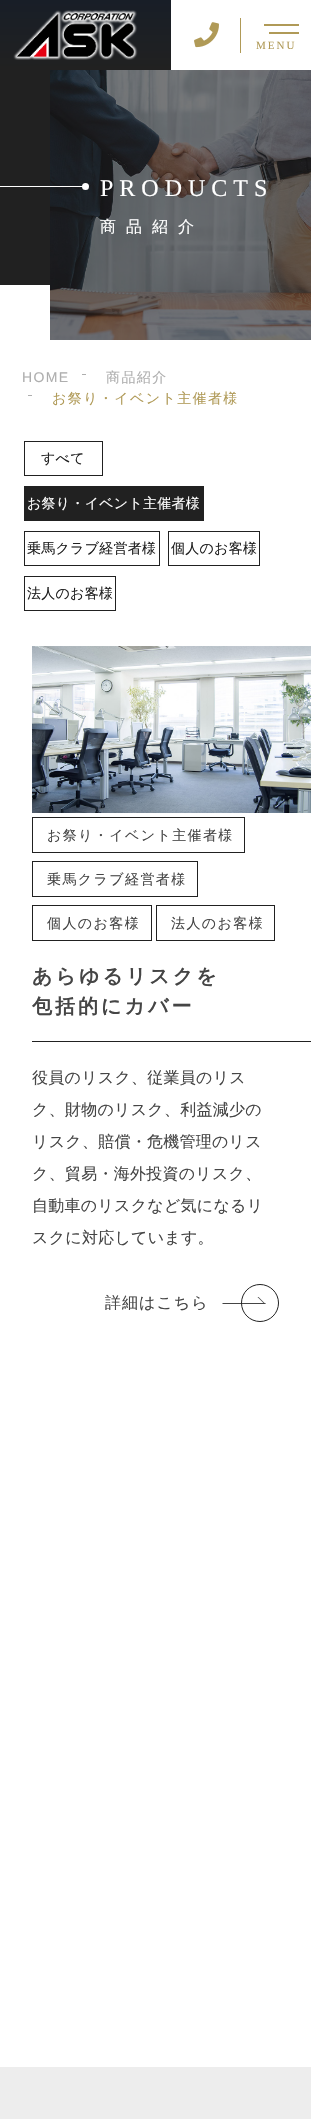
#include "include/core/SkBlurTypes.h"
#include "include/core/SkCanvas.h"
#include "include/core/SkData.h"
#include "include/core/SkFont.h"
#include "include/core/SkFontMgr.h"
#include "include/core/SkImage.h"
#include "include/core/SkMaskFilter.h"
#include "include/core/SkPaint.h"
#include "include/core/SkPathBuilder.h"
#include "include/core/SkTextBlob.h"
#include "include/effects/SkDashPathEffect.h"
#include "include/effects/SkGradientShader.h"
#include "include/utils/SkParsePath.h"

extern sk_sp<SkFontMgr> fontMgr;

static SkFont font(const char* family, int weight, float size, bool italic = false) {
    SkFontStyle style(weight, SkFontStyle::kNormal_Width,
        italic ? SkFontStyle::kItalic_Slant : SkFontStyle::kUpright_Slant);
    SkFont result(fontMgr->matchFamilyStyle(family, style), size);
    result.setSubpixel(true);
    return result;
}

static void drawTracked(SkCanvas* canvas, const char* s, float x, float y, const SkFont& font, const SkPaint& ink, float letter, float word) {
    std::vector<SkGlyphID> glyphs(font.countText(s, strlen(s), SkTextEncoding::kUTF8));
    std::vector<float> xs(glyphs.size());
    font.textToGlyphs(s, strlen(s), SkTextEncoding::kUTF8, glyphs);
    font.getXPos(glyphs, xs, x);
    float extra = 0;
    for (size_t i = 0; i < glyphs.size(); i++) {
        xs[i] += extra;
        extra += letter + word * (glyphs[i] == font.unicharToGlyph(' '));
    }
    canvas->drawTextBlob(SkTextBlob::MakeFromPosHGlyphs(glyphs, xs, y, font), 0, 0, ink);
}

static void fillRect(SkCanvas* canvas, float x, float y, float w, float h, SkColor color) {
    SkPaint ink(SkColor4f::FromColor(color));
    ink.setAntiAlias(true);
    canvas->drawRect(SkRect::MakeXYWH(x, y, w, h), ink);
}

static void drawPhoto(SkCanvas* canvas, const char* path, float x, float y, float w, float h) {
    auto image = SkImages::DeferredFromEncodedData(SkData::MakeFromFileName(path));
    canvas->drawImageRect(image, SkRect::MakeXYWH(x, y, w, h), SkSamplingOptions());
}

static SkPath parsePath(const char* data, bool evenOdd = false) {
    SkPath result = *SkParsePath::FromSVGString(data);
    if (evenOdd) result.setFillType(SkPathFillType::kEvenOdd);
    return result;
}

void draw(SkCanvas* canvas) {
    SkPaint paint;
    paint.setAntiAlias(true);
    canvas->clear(0xFFFFFFFF);
    {
        const SkColor colors[] = {0xFF181E27, 0xFF212121};
        const float stops[] = {0, 1};
        const SkPoint ends[] = {{156, 0}, {156, 70}};
        paint.setShader(SkGradientShader::MakeLinear(ends, colors, stops, 2, SkTileMode::kClamp));
        paint.setAlpha(255);
    }
    canvas->drawRect(SkRect::MakeXYWH(0, 0, 171, 70), paint);
    drawPhoto(canvas, "assets/img1.png", 13, 10, 125, 50);
    drawPhoto(canvas, "assets/img2.png", 194, 22, 25, 26);
    fillRect(canvas, 240, 18, 1, 35, 0xFFB09A57);
    fillRect(canvas, 264, 24, 35, 2, 0xFFB09A57);
    fillRect(canvas, 269, 32, 30, 2, 0xFFB09A57);
    SkFont font1 = font("Liberation Serif", 400, 11);
    paint.setShader(nullptr);
    paint.setColor(0xFFB09A57);
    drawTracked(canvas, "MENU", 256, 49, font1, paint, 2, 0);
    fillRect(canvas, 0, 70, 50, 215, 0xFF212121);
    drawPhoto(canvas, "assets/img3.png", 50, 70, 261, 270);
    paint.setColor(0xFFFFFFFF);
    canvas->drawCircle(85.5f, 186.5f, 3.5f, paint);
    fillRect(canvas, 0, 186, 85, 1, 0xFFFFFFFF);
    SkFont font2 = font("Liberation Serif", 400, 24);
    drawTracked(canvas, "PRODUCTS", 100, 196, font2, paint, 6, 0);
    SkFont font3 = font("WenQuanYi Zen Hei", 500, 16);
    drawTracked(canvas, "商品紹介", 100, 232, font3, paint, 10, 0);
    SkFont font4 = font("Liberation Sans", 400, 14);
    paint.setColor(0xFFAEAEAE);
    drawTracked(canvas, "HOME", 22, 382, font4, paint, 1.4f, 0);
    fillRect(canvas, 82, 374, 4, 1, 0xFFAEAEAE);
    SkFont font5 = font("WenQuanYi Zen Hei", 500, 14);
    drawTracked(canvas, "商品紹介", 106, 382, font5, paint, 1.4f, 0);
    fillRect(canvas, 28, 395, 4, 1, 0xFFAEAEAE);
    paint.setColor(0xFFB09A57);
    drawTracked(canvas, "お祭り・イベント主催者様", 52, 403, font5, paint, 1.4f, 0);
    paint.setStroke(true);
    paint.setStrokeWidth(1);
    paint.setColor(0xFF212121);
    canvas->drawRect(SkRect::MakeXYWH(24.5f, 441.5f, 78, 34), paint);
    paint.setStroke(false);
    drawTracked(canvas, "すべて", 41, 463, font5, paint, 0.25f, 0);
    fillRect(canvas, 24, 486, 180, 35, 0xFF212121);
    paint.setColor(0xFFFFFFFF);
    drawTracked(canvas, "お祭り・イベント主催者様", 27, 508, font5, paint, 0.25f, 0);
    paint.setStroke(true);
    paint.setColor(0xFF212121);
    canvas->drawRect(SkRect::MakeXYWH(24.5f, 531.5f, 135, 34), paint);
    paint.setStroke(false);
    drawTracked(canvas, "乗馬クラブ経営者様", 27, 553, font5, paint, 0.25f, 0);
    paint.setStroke(true);
    canvas->drawRect(SkRect::MakeXYWH(168.5f, 531.5f, 91, 34), paint);
    paint.setStroke(false);
    drawTracked(canvas, "個人のお客様", 171, 553, font5, paint, 0.25f, 0);
    paint.setStroke(true);
    canvas->drawRect(SkRect::MakeXYWH(24.5f, 576.5f, 91, 34), paint);
    paint.setStroke(false);
    drawTracked(canvas, "法人のお客様", 27, 598, font5, paint, 0.25f, 0);
    drawPhoto(canvas, "assets/img4.png", 32, 646, 279, 167);
    paint.setStroke(true);
    canvas->drawRect(SkRect::MakeXYWH(32.5f, 817.5f, 212, 35), paint);
    paint.setStroke(false);
    paint.setColor(0xFF454545);
    drawTracked(canvas, "お祭り・イベント主催者様", 47, 840, font5, paint, 1.4f, 0);
    paint.setStroke(true);
    paint.setColor(0xFF212121);
    canvas->drawRect(SkRect::MakeXYWH(32.5f, 861.5f, 165, 35), paint);
    paint.setStroke(false);
    paint.setColor(0xFF454545);
    drawTracked(canvas, "乗馬クラブ経営者様", 47, 884, font5, paint, 1.4f, 0);
    paint.setStroke(true);
    paint.setColor(0xFF212121);
    canvas->drawRect(SkRect::MakeXYWH(32.5f, 905.5f, 119, 35), paint);
    paint.setStroke(false);
    paint.setColor(0xFF454545);
    drawTracked(canvas, "個人のお客様", 47, 928, font5, paint, 1.4f, 0);
    paint.setStroke(true);
    paint.setColor(0xFF212121);
    canvas->drawRect(SkRect::MakeXYWH(156.5f, 905.5f, 118, 35), paint);
    paint.setStroke(false);
    paint.setColor(0xFF454545);
    drawTracked(canvas, "法人のお客様", 171, 928, font5, paint, 1.4f, 0);
    fillRect(canvas, 32, 1041, 279, 1, 0xFF212121);
    SkFont font6 = font("WenQuanYi Zen Hei", 700, 20);
    drawTracked(canvas, "あらゆるリスクを", 32, 983, font6, paint, 3, 0);
    drawTracked(canvas, "包括的にカバー", 32, 1013, font6, paint, 3, 0);
    drawTracked(canvas, "役員のリスク、従業員のリス", 32, 1083, font3, paint, 0.25f, 0);
    drawTracked(canvas, "ク、財物のリスク、利益減少の", 32, 1115, font3, paint, 0.25f, 0);
    drawTracked(canvas, "リスク、賠償・危機管理のリス", 32, 1147, font3, paint, 0.25f, 0);
    drawTracked(canvas, "ク、貿易・海外投資のリスク、", 32, 1179, font3, paint, 0.25f, 0);
    drawTracked(canvas, "自動車のリスクなど気になるリ", 32, 1211, font3, paint, 0.25f, 0);
    drawTracked(canvas, "スクに対応しています。", 32, 1243, font3, paint, 0.25f, 0);
    drawTracked(canvas, "詳細はこちら", 105, 1308, font3, paint, 1, 0);
    canvas->drawPath(parsePath("M257.5 1297H258.5L265.5 1304H264.5Z"), paint);
    canvas->drawPath(parsePath("M222 1303H265L266 1304H223Z"), paint);
    paint.setStroke(true);
    paint.setColor(0xFF212121);
    canvas->drawCircle(260, 1303, 18.5f, paint);
    fillRect(canvas, 0, 2067, 311, 52, 0xFFEDEDED);
}
